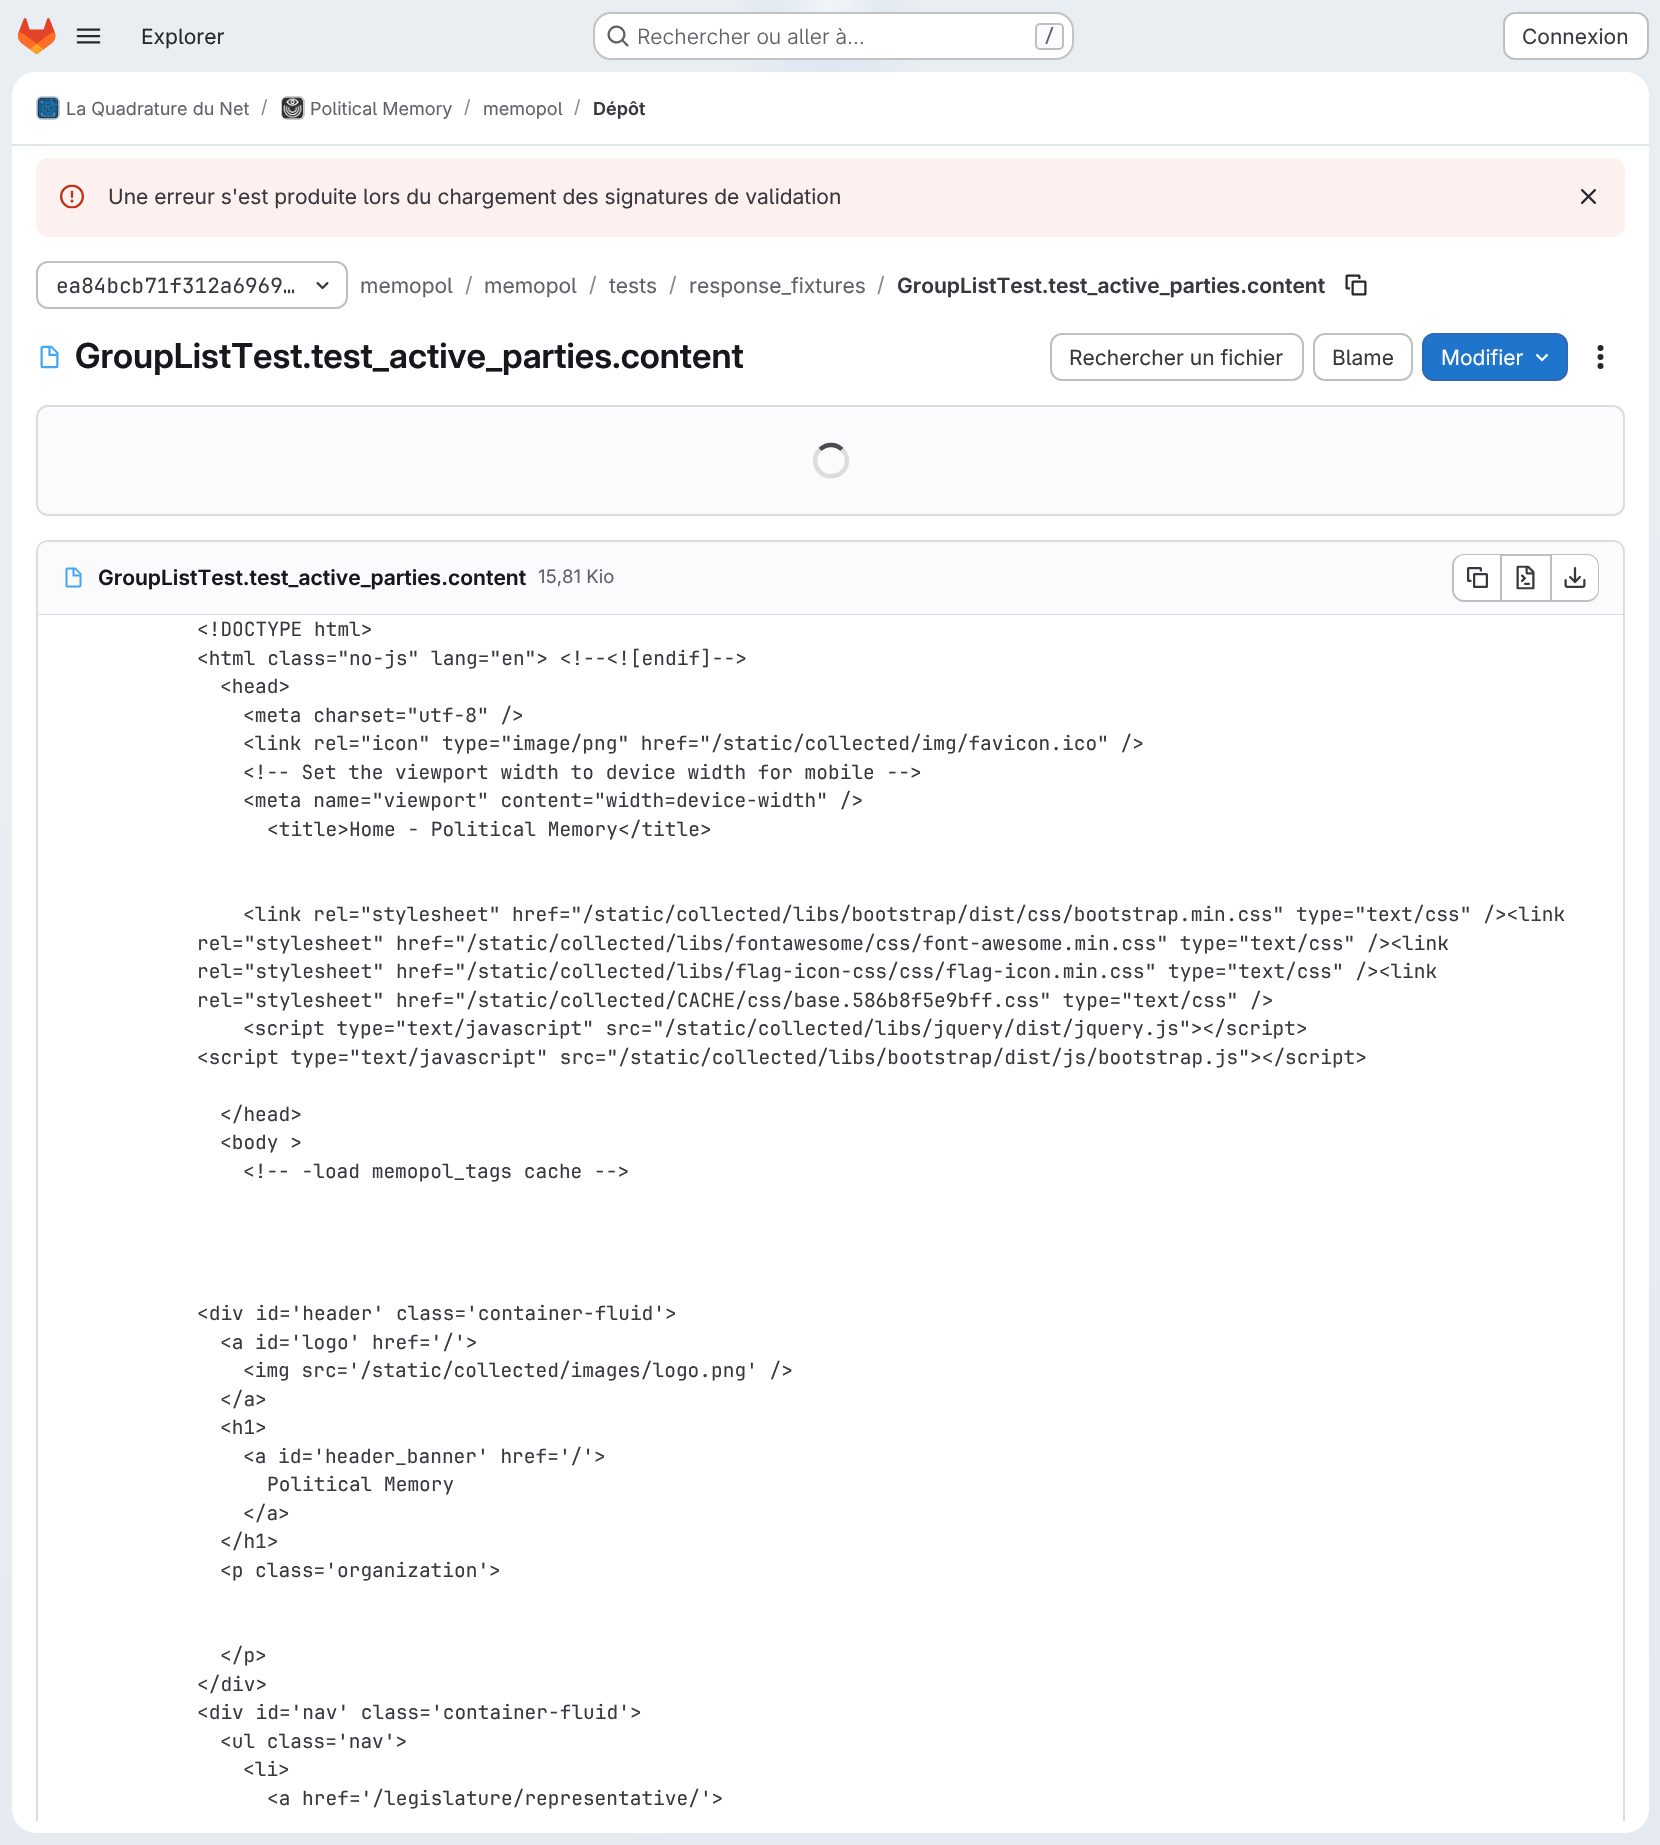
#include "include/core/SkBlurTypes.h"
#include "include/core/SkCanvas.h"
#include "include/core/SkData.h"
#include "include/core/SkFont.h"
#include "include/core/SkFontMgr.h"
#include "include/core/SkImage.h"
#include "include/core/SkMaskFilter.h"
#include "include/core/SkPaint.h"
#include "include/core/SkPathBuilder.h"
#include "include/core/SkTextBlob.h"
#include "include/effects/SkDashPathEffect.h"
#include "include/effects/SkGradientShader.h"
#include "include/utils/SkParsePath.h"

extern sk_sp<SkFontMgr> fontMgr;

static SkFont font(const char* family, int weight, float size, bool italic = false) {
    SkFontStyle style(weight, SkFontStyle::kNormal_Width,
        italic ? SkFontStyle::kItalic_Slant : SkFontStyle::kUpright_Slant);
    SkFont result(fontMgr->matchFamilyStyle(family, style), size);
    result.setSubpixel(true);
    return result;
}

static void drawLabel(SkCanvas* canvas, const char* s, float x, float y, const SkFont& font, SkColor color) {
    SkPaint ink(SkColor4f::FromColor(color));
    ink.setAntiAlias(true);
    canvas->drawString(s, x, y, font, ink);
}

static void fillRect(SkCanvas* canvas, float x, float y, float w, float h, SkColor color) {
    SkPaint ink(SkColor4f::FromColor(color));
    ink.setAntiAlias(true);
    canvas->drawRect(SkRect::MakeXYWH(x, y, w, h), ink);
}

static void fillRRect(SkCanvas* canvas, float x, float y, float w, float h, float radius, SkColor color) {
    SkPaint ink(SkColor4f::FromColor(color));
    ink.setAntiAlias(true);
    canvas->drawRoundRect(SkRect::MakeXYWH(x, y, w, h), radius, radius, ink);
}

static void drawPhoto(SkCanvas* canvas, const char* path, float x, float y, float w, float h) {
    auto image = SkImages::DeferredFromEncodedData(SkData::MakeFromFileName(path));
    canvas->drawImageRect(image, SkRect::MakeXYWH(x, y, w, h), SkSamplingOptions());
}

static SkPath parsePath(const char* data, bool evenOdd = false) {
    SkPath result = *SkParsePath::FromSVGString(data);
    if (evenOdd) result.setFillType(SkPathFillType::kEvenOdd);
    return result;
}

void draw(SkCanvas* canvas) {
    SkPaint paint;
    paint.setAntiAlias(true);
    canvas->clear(0xFFFFFFFF);
    {
        const SkColor colors[] = {0xFFE5EAF2, 0xFFE9EEF3};
        const float stops[] = {0, 0.7f};
        const SkPoint ends[] = {{1013, 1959}, {647, -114}};
        paint.setShader(SkGradientShader::MakeLinear(ends, colors, stops, 2, SkTileMode::kClamp));
        paint.setAlpha(255);
    }
    canvas->drawRect(SkRect::MakeXYWH(0, 0, 1660, 1845), paint);
    {
        const SkColor colors[] = {0xFFDEE5F1, 0x00DEE5F1};
        const float stops[] = {0, 0.13f};
        SkMatrix m = SkMatrix::Translate(830, 0).preScale(830, 1845);
        paint.setShader(SkGradientShader::MakeRadial({0, 0}, 1, colors, stops, 2, SkTileMode::kClamp, 0, &m));
        paint.setAlpha(255);
    }
    canvas->drawRect(SkRect::MakeXYWH(742, 0, 176, 72), paint);
    {
        const SkColor colors[] = {0xFFDEE7F1, 0x00DEE7F1};
        const float stops[] = {0, 0.09f};
        SkMatrix m = SkMatrix::Translate(830, 0).preScale(830, 1845);
        paint.setShader(SkGradientShader::MakeRadial({0, 0}, 1, colors, stops, 2, SkTileMode::kClamp, 0, &m));
        paint.setAlpha(255);
    }
    canvas->drawRect(SkRect::MakeXYWH(782, 0, 96, 72), paint);
    {
        const SkColor colors[] = {0x99FFFFFF, 0x00FFFFFF};
        const float stops[] = {0, 0.03f};
        paint.setShader(SkGradientShader::MakeRadial({830, 0}, 2023, colors, stops, 2, SkTileMode::kClamp));
        paint.setAlpha(255);
    }
    canvas->drawRect(SkRect::MakeXYWH(778, 0, 104, 12), paint);
    drawPhoto(canvas, "assets/img1.png", 18, 18, 38, 36);
    drawPhoto(canvas, "assets/img2.png", 76, 28, 25, 16);
    SkFont font1 = font("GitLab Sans", 400, 21);
    drawLabel(canvas, "Explorer", 141, 44, font1, 0xFF28272D);
    fillRRect(canvas, 593, 12, 481, 48, 18, 0xFFFFFFFF);
    paint.setStroke(true);
    paint.setStrokeWidth(2);
    paint.setShader(nullptr);
    paint.setColor(0x3D050506);
    canvas->drawRoundRect(SkRect::MakeXYWH(594, 13, 479, 46), 17, 17, paint);
    drawPhoto(canvas, "assets/img3.png", 607, 25, 22, 22);
    SkFont font2 = font("GitLab Sans", 300, 21);
    drawLabel(canvas, "Rechercher ou aller à…", 637, 44, font2, 0xFF626168);
    paint.setStroke(false);
    paint.setColor(0xFFFBFAFD);
    canvas->drawRoundRect(SkRect::MakeXYWH(1036, 24, 27, 25), 4, 4, paint);
    paint.setStroke(true);
    paint.setColor(0xFFBFBFC3);
    canvas->drawRoundRect(SkRect::MakeXYWH(1036, 24, 27, 25), 4, 4, paint);
    SkFont font3 = font("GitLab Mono", 500, 18);
    drawLabel(canvas, "/", 1044, 42, font3, 0xFF626168);
    paint.setStroke(false);
    paint.setColor(0xFFFFFFFF);
    canvas->drawRoundRect(SkRect::MakeXYWH(1504, 13, 144, 46), 11, 11, paint);
    paint.setStroke(true);
    paint.setColor(0xFFBFBFC3);
    canvas->drawRoundRect(SkRect::MakeXYWH(1504, 13, 144, 46), 11, 11, paint);
    drawLabel(canvas, "Connexion", 1522, 44, font1, 0xFF3A383F);
    fillRRect(canvas, 12, 72, 1637, 1761, 24, 0xFFFFFFFF);
    paint.setStroke(false);
    paint.setColor(0xFFFFFFFF);
    canvas->drawPath(parsePath("M36 72H1625C1638.5 72 1649 82.5 1649 96V146H12V96C12 82.5 22.5 72 36 72Z"), paint);
    fillRect(canvas, 12, 144, 1637, 2, 0xFFDFE6EC);
    paint.setStroke(true);
    paint.setColor(0xFFDCDCDE);
    canvas->drawRoundRect(SkRect::MakeXYWH(37, 97, 22, 22), 5, 5, paint);
    drawPhoto(canvas, "assets/img4.png", 37, 97, 22, 22);
    paint.setColor(0x14050506);
    canvas->drawRoundRect(SkRect::MakeXYWH(37, 97, 22, 22), 5, 5, paint);
    SkFont font4 = font("GitLab Sans", 400, 18);
    drawLabel(canvas, "La Quadrature du Net", 66, 115, font4, 0xFF626168);
    drawLabel(canvas, "/", 261, 113, font4, 0xFF89888D);
    paint.setColor(0xFFDCDCDE);
    canvas->drawRoundRect(SkRect::MakeXYWH(282, 97, 22, 22), 5, 5, paint);
    drawPhoto(canvas, "assets/img5.png", 282, 97, 21, 22);
    paint.setColor(0x14050506);
    canvas->drawRoundRect(SkRect::MakeXYWH(282, 97, 22, 22), 5, 5, paint);
    drawLabel(canvas, "Political Memory", 310, 115, font4, 0xFF626168);
    drawLabel(canvas, "/", 464, 113, font4, 0xFF89888D);
    drawLabel(canvas, "memopol", 483, 115, font4, 0xFF626168);
    drawLabel(canvas, "/", 574, 113, font4, 0xFF89888D);
    SkFont font5 = font("GitLab Sans", 600, 18);
    drawLabel(canvas, "Dépôt", 593, 115, font5, 0xFF3A383F);
    fillRRect(canvas, 36, 158, 1589, 79, 12, 0xFFFCF1EF);
    drawPhoto(canvas, "assets/img6.png", 60, 184, 24, 25);
    drawLabel(canvas, "Une erreur s'est produite lors du chargement des signatures de validation", 108, 204, font1, 0xFF3A383F);
    drawPhoto(canvas, "assets/img7.png", 1581, 189, 15, 15);
    paint.setColor(0xFFBFBFC3);
    canvas->drawRoundRect(SkRect::MakeXYWH(37, 262, 310, 46), 11, 11, paint);
    SkFont font6 = font("GitLab Mono", 400, 21);
    drawLabel(canvas, "ea84bcb71f312a6969…", 56, 293, font6, 0xFF3A383F);
    drawPhoto(canvas, "assets/img8.png", 316, 282, 13, 8);
    drawLabel(canvas, "memopol", 360, 293, font1, 0xFF626168);
    drawLabel(canvas, "/", 465, 292, font1, 0xFF89888D);
    drawLabel(canvas, "memopol", 484, 293, font1, 0xFF626168);
    drawLabel(canvas, "/", 589, 292, font1, 0xFF89888D);
    drawLabel(canvas, "tests", 609, 293, font1, 0xFF626168);
    drawLabel(canvas, "/", 669, 292, font1, 0xFF89888D);
    drawLabel(canvas, "response_fixtures", 689, 293, font1, 0xFF626168);
    drawLabel(canvas, "/", 877, 292, font1, 0xFF89888D);
    SkFont font7 = font("GitLab Sans", 600, 21);
    drawLabel(canvas, "GroupListTest.test_active_parties.content", 897, 293, font7, 0xFF3A383F);
    drawPhoto(canvas, "assets/img9.png", 1345, 274, 22, 22);
    drawPhoto(canvas, "assets/img10.png", 40, 345, 19, 24);
    SkFont font8 = font("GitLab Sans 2", 600, 34.5f);
    drawLabel(canvas, "GroupListTest.test_active_parties.content", 75, 368, font8, 0xFF18171D);
    canvas->drawRoundRect(SkRect::MakeXYWH(1051, 334, 252, 46), 11, 11, paint);
    drawLabel(canvas, "Rechercher un fichier", 1069, 365, font1, 0xFF3A383F);
    canvas->drawRoundRect(SkRect::MakeXYWH(1314, 334, 98, 46), 11, 11, paint);
    drawLabel(canvas, "Blame", 1332, 365, font1, 0xFF3A383F);
    paint.setStroke(false);
    paint.setColor(0xFF1F75CB);
    canvas->drawRoundRect(SkRect::MakeXYWH(1423, 334, 144, 46), 11, 11, paint);
    paint.setStroke(true);
    paint.setColor(0xFF2F68B4);
    canvas->drawRoundRect(SkRect::MakeXYWH(1423, 334, 144, 46), 11, 11, paint);
    drawLabel(canvas, "Modifier", 1441, 365, font1, 0xFFFFFFFF);
    drawPhoto(canvas, "assets/img11.png", 1536, 354, 12, 8);
    drawPhoto(canvas, "assets/img12.png", 1597, 345, 7, 24);
    paint.setStroke(false);
    paint.setColor(0xFFFBFAFD);
    canvas->drawRoundRect(SkRect::MakeXYWH(37, 406, 1587, 109), 11, 11, paint);
    paint.setStroke(true);
    paint.setColor(0xFFDCDCDE);
    canvas->drawRoundRect(SkRect::MakeXYWH(37, 406, 1587, 109), 11, 11, paint);
    paint.setStrokeWidth(4.5f);
    paint.setColor(0xFF4C4B51);
    canvas->drawPath(parsePath("M820 449.5C826 443.5 836 443.5 842 449.5"), paint);
    paint.setColor(0xFFDCDCDE);
    canvas->drawPath(parsePath("M842 449.5C845 452.5 847 456.5 847 460.5C847 479.5 819 482 815.5 463.5C814.5 458.5 816 453 820 449.5"), paint);
    canvas->save();
    canvas->clipRect(SkRect::MakeXYWH(12, 146, 1637, 1675));
    paint.setStroke(false);
    canvas->drawPath(parsePath("M48 540C41 540 36 545 36 552V1833H38V552C38 546 42 542 48 542H1613C1619 542 1623 546 1623 552V1833H1625V552C1625 545 1620 540 1613 540Z"), paint);
    canvas->restore();
    paint.setColor(0xFFFBFAFD);
    canvas->drawPath(parsePath("M49 542H1612C1618 542 1623 547 1623 553V615H38V553C38 547 43 542 49 542Z"), paint);
    fillRect(canvas, 38, 614, 1585, 1, 0xFFDCDCDE);
    drawPhoto(canvas, "assets/img13.png", 65, 567, 17, 21);
    drawLabel(canvas, "GroupListTest.test_active_parties.content", 98, 585, font7, 0xFF18171D);
    SkFont font9 = font("GitLab Sans", 400, 18.5f);
    drawLabel(canvas, "15,81 Kio", 538, 583, font9, 0xFF626168);
    paint.setColor(0xFFFFFFFF);
    canvas->drawPath(parsePath("M1465 555H1500V600H1465C1459 600 1454 595 1454 589V566C1454 560 1459 555 1465 555Z"), paint);
    paint.setColor(0xFFBFBFC3);
    canvas->drawPath(parsePath("M1464 554H1500V602H1464C1457 602 1452 596 1452 590V566C1452 559 1457 554 1464 554ZM1464 555H1500V600H1464C1458 600 1454 595 1454 590V566C1454 560 1458 555 1464 555Z", true), paint);
    drawPhoto(canvas, "assets/img14.png", 1467, 567, 21, 21);
    fillRect(canvas, 1502, 556, 48, 44, 0xFFFFFFFF);
    fillRect(canvas, 1502, 554, 48, 2, 0xFFBFBFC3);
    fillRect(canvas, 1502, 600, 48, 2, 0xFFBFBFC3);
    fillRect(canvas, 1500, 554, 2, 48, 0xFFBFBFC3);
    drawPhoto(canvas, "assets/img15.png", 1516, 565, 19, 25);
    paint.setColor(0xFFFFFFFF);
    canvas->drawPath(parsePath("M1551 555H1587C1593 555 1598 560 1598 566V589C1598 595 1593 600 1587 600H1551Z"), paint);
    paint.setColor(0xFFBFBFC3);
    canvas->drawPath(parsePath("M1551 554H1587C1594 554 1599 559 1599 566V590C1599 596 1594 602 1587 602H1551ZM1551 555H1587C1593 555 1598 560 1598 566V590C1598 595 1593 600 1587 600H1551Z", true), paint);
    fillRect(canvas, 1550, 554, 2, 48, 0xFFBFBFC3);
    drawPhoto(canvas, "assets/img16.png", 1564, 567, 22, 21);
    SkFont font10 = font("GitLab Mono", 400, 19.5f);
    drawLabel(canvas, "<!DOCTYPE html>", 197, 636, font10, 0xFF3A383F);
    drawLabel(canvas, "<html class=\"no-js\" lang=\"en\"> <!--<![endif]-->", 197, 665, font10, 0xFF3A383F);
    drawLabel(canvas, "<head>", 220, 693, font10, 0xFF3A383F);
    drawLabel(canvas, "<meta charset=\"utf-8\" />", 243, 722, font10, 0xFF3A383F);
    drawLabel(canvas, "<link rel=\"icon\" type=\"image/png\" href=\"/static/collected/img/favicon.ico\" />", 243, 750, font10, 0xFF3A383F);
    drawLabel(canvas, "<!-- Set the viewport width to device width for mobile -->", 243, 779, font10, 0xFF3A383F);
    drawLabel(canvas, "<meta name=\"viewport\" content=\"width=device-width\" />", 243, 807, font10, 0xFF3A383F);
    drawLabel(canvas, "<title>Home - Political Memory</title>", 267, 836, font10, 0xFF3A383F);
    drawLabel(canvas, "<link rel=\"stylesheet\" href=\"/static/collected/libs/bootstrap/dist/css/bootstrap.min.css\" type=\"text/css\" /><link", 243, 921, font10, 0xFF3A383F);
    drawLabel(canvas, "rel=\"stylesheet\" href=\"/static/collected/libs/fontawesome/css/font-awesome.min.css\" type=\"text/css\" /><link", 197, 950, font10, 0xFF3A383F);
    drawLabel(canvas, "rel=\"stylesheet\" href=\"/static/collected/libs/flag-icon-css/css/flag-icon.min.css\" type=\"text/css\" /><link", 197, 978, font10, 0xFF3A383F);
    drawLabel(canvas, "rel=\"stylesheet\" href=\"/static/collected/CACHE/css/base.586b8f5e9bff.css\" type=\"text/css\" />", 197, 1007, font10, 0xFF3A383F);
    drawLabel(canvas, "<script type=\"text/javascript\" src=\"/static/collected/libs/jquery/dist/jquery.js\"></script>", 243, 1035, font10, 0xFF3A383F);
    drawLabel(canvas, "<script type=\"text/javascript\" src=\"/static/collected/libs/bootstrap/dist/js/bootstrap.js\"></script>", 197, 1064, font10, 0xFF3A383F);
    drawLabel(canvas, "</head>", 220, 1121, font10, 0xFF3A383F);
    drawLabel(canvas, "<body >", 220, 1149, font10, 0xFF3A383F);
    drawLabel(canvas, "<!-- -load memopol_tags cache -->", 243, 1178, font10, 0xFF3A383F);
    drawLabel(canvas, "<div id='header' class='container-fluid'>", 197, 1320, font10, 0xFF3A383F);
    drawLabel(canvas, "<a id='logo' href='/'>", 220, 1349, font10, 0xFF3A383F);
    drawLabel(canvas, "<img src='/static/collected/images/logo.png' />", 243, 1377, font10, 0xFF3A383F);
    drawLabel(canvas, "</a>", 220, 1406, font10, 0xFF3A383F);
    drawLabel(canvas, "<h1>", 220, 1434, font10, 0xFF3A383F);
    drawLabel(canvas, "<a id='header_banner' href='/'>", 243, 1463, font10, 0xFF3A383F);
    drawLabel(canvas, "Political Memory", 267, 1491, font10, 0xFF3A383F);
    drawLabel(canvas, "</a>", 243, 1520, font10, 0xFF3A383F);
    drawLabel(canvas, "</h1>", 220, 1548, font10, 0xFF3A383F);
    drawLabel(canvas, "<p class='organization'>", 220, 1577, font10, 0xFF3A383F);
    drawLabel(canvas, "</p>", 220, 1662, font10, 0xFF3A383F);
    drawLabel(canvas, "</div>", 197, 1691, font10, 0xFF3A383F);
    drawLabel(canvas, "<div id='nav' class='container-fluid'>", 197, 1719, font10, 0xFF3A383F);
    drawLabel(canvas, "<ul class='nav'>", 220, 1748, font10, 0xFF3A383F);
    drawLabel(canvas, "<li>", 243, 1776, font10, 0xFF3A383F);
    drawLabel(canvas, "<a href='/legislature/representative/'>", 267, 1805, font10, 0xFF3A383F);
}
